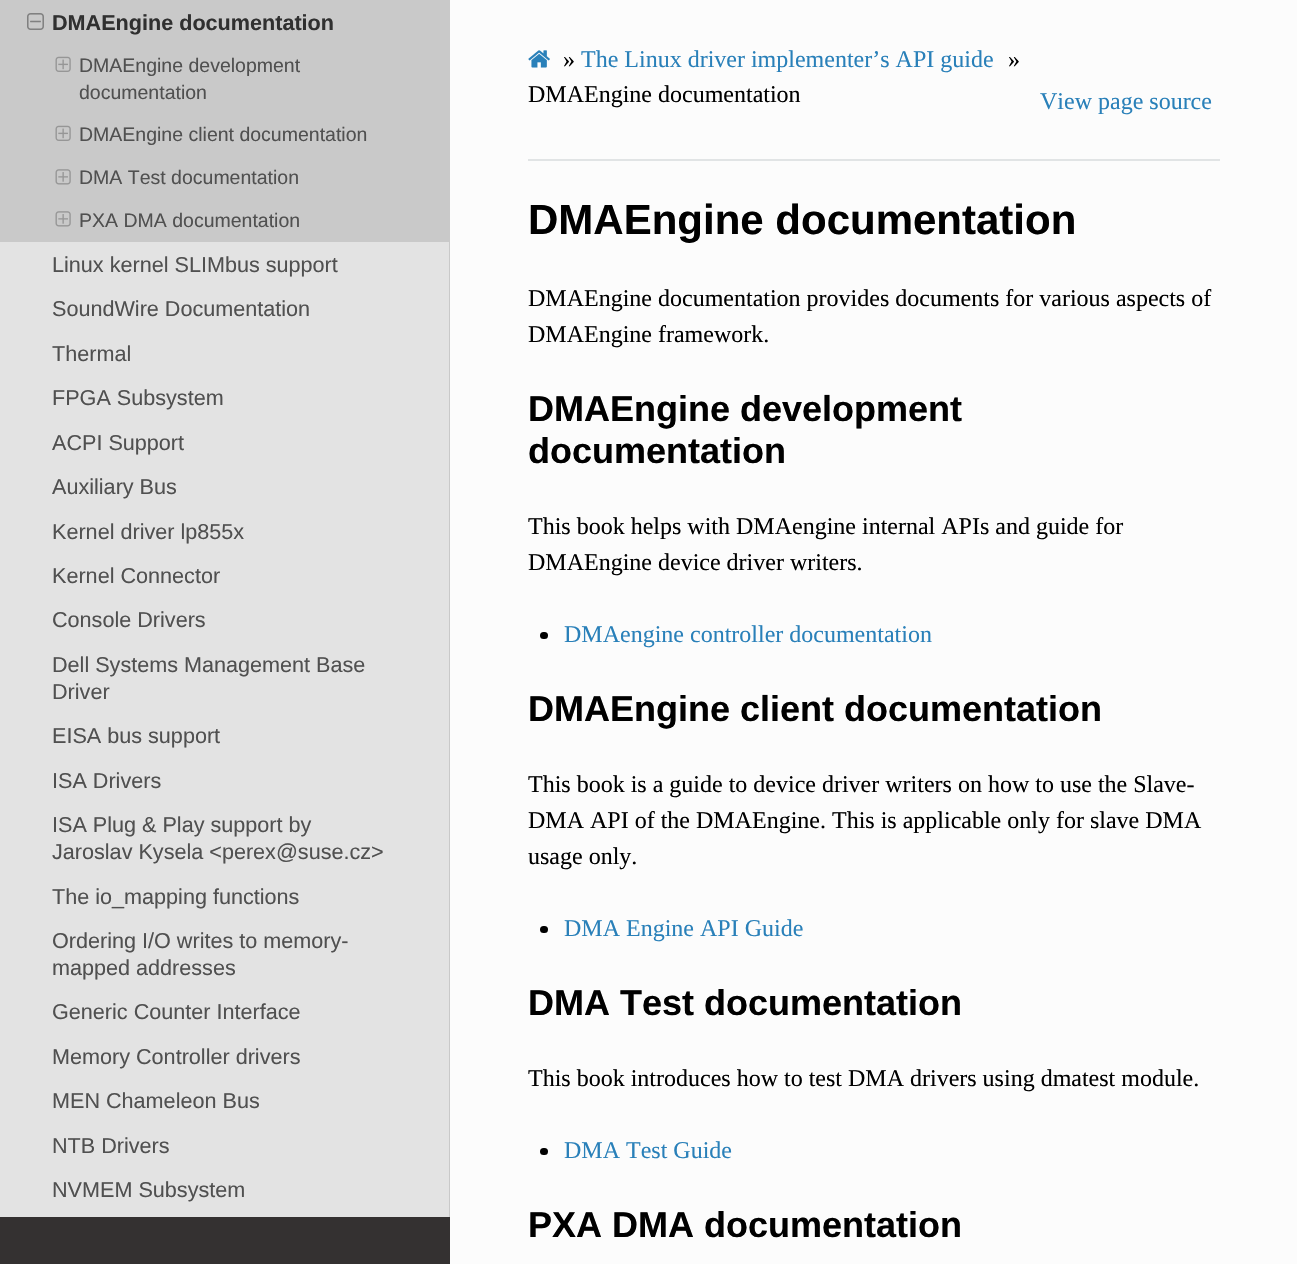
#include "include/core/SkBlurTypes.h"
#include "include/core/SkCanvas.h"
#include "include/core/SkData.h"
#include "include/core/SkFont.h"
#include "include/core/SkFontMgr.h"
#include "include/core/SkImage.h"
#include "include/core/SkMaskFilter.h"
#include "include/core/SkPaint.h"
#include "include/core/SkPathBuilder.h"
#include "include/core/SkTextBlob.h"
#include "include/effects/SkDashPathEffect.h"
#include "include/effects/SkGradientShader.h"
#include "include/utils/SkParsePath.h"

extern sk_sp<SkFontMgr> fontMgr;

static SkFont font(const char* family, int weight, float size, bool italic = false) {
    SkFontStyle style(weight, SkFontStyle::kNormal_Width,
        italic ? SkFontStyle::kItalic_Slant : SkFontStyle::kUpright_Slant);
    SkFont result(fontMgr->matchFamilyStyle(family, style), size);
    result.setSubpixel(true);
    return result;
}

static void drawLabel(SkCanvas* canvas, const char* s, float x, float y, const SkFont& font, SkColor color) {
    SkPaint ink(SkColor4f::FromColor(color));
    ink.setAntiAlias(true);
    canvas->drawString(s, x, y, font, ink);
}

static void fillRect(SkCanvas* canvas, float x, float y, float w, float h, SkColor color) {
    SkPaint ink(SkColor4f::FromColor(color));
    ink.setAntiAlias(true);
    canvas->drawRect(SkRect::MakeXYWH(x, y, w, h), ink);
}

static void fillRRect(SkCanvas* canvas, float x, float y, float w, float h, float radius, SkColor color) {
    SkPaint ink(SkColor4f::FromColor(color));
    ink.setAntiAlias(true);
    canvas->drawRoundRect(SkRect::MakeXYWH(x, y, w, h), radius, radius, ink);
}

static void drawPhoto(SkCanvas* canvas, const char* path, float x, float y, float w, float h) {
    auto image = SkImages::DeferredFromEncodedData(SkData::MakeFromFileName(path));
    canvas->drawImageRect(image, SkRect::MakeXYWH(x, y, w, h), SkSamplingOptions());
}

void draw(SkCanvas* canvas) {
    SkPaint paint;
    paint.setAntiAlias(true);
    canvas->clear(0xFFFCFCFC);
    fillRect(canvas, 0, 1217, 450, 47, 0xFF343131);
    fillRect(canvas, 0, 242, 449, 975, 0xFFE3E3E3);
    fillRect(canvas, 0, 0, 450, 242, 0xFFC9C9C9);
    drawPhoto(canvas, "assets/img1.png", 27, 13, 17, 17);
    SkFont font1 = font("Liberation Sans", 700, 21.6f);
    drawLabel(canvas, "DMAEngine documentation", 52, 30, font1, 0xFF303030);
    drawPhoto(canvas, "assets/img2.png", 55, 56, 16, 16);
    SkFont font2 = font("Liberation Sans", 400, 19.5f);
    drawLabel(canvas, "DMAEngine development", 79, 72, font2, 0xFF505050);
    drawLabel(canvas, "documentation", 79, 99, font2, 0xFF505050);
    drawPhoto(canvas, "assets/img2.png", 55, 125, 16, 16);
    drawLabel(canvas, "DMAEngine client documentation", 79, 141, font2, 0xFF505050);
    drawPhoto(canvas, "assets/img3.png", 55, 169, 16, 16);
    drawLabel(canvas, "DMA Test documentation", 79, 184, font2, 0xFF505050);
    drawPhoto(canvas, "assets/img3.png", 55, 211, 16, 16);
    drawLabel(canvas, "PXA DMA documentation", 79, 227, font2, 0xFF505050);
    fillRect(canvas, 449, 242, 1, 975, 0xFFC9C9C9);
    SkFont font3 = font("Liberation Sans", 400, 21.6f);
    drawLabel(canvas, "Linux kernel SLIMbus support", 52, 272, font3, 0xFF505050);
    drawLabel(canvas, "SoundWire Documentation", 52, 316, font3, 0xFF505050);
    drawLabel(canvas, "Thermal", 52, 361, font3, 0xFF505050);
    drawLabel(canvas, "FPGA Subsystem", 52, 405, font3, 0xFF505050);
    drawLabel(canvas, "ACPI Support", 52, 450, font3, 0xFF505050);
    drawLabel(canvas, "Auxiliary Bus", 52, 494, font3, 0xFF505050);
    drawLabel(canvas, "Kernel driver lp855x", 52, 539, font3, 0xFF505050);
    drawLabel(canvas, "Kernel Connector", 52, 583, font3, 0xFF505050);
    drawLabel(canvas, "Console Drivers", 52, 627, font3, 0xFF505050);
    drawLabel(canvas, "Dell Systems Management Base", 52, 672, font3, 0xFF505050);
    drawLabel(canvas, "Driver", 52, 699, font3, 0xFF505050);
    drawLabel(canvas, "EISA bus support", 52, 743, font3, 0xFF505050);
    drawLabel(canvas, "ISA Drivers", 52, 788, font3, 0xFF505050);
    drawLabel(canvas, "ISA Plug & Play support by", 52, 832, font3, 0xFF505050);
    drawLabel(canvas, "Jaroslav Kysela <perex@suse.cz>", 52, 859, font3, 0xFF505050);
    drawLabel(canvas, "The io_mapping functions", 52, 904, font3, 0xFF505050);
    drawLabel(canvas, "Ordering I/O writes to memory-", 52, 948, font3, 0xFF505050);
    drawLabel(canvas, "mapped addresses", 52, 975, font3, 0xFF505050);
    drawLabel(canvas, "Generic Counter Interface", 52, 1019, font3, 0xFF505050);
    drawLabel(canvas, "Memory Controller drivers", 52, 1064, font3, 0xFF505050);
    drawLabel(canvas, "MEN Chameleon Bus", 52, 1108, font3, 0xFF505050);
    drawLabel(canvas, "NTB Drivers", 52, 1153, font3, 0xFF505050);
    drawLabel(canvas, "NVMEM Subsystem", 52, 1197, font3, 0xFF505050);
    drawPhoto(canvas, "assets/img4.png", 528, 50, 22, 18);
    SkFont font4 = font("Liberation Serif", 400, 24);
    drawLabel(canvas, "»", 563, 67, font4, 0xFF000000);
    drawLabel(canvas, "The Linux driver implementer’s API guide", 581, 67, font4, 0xFF2980B9);
    drawLabel(canvas, "»", 1008, 67, font4, 0xFF000000);
    drawLabel(canvas, "DMAEngine documentation", 528, 102, font4, 0xFF000000);
    drawLabel(canvas, "View page source", 1040, 109, font4, 0xFF2980B9);
    fillRect(canvas, 528, 159, 692, 2, 0xFFE1E4E5);
    SkFont font5 = font("Liberation Sans", 700, 42);
    drawLabel(canvas, "DMAEngine documentation", 528, 234, font5, 0xFF000000);
    drawLabel(canvas, "DMAEngine documentation provides documents for various aspects of", 528, 306, font4, 0xFF000000);
    drawLabel(canvas, "DMAEngine framework.", 528, 342, font4, 0xFF000000);
    SkFont font6 = font("Liberation Sans", 700, 36);
    drawLabel(canvas, "DMAEngine development", 528, 421, font6, 0xFF000000);
    drawLabel(canvas, "documentation", 528, 463, font6, 0xFF000000);
    drawLabel(canvas, "This book helps with DMAengine internal APIs and guide for", 528, 534, font4, 0xFF000000);
    drawLabel(canvas, "DMAEngine device driver writers.", 528, 570, font4, 0xFF000000);
    fillRRect(canvas, 540, 632, 8, 7, 3.5f, 0xFF000000);
    drawLabel(canvas, "DMAengine controller documentation", 564, 642, font4, 0xFF2980B9);
    drawLabel(canvas, "DMAEngine client documentation", 528, 721, font6, 0xFF000000);
    drawLabel(canvas, "This book is a guide to device driver writers on how to use the Slave-", 528, 792, font4, 0xFF000000);
    drawLabel(canvas, "DMA API of the DMAEngine. This is applicable only for slave DMA", 528, 828, font4, 0xFF000000);
    drawLabel(canvas, "usage only.", 528, 864, font4, 0xFF000000);
    fillRRect(canvas, 540, 926, 8, 7, 3.5f, 0xFF000000);
    drawLabel(canvas, "DMA Engine API Guide", 564, 936, font4, 0xFF2980B9);
    drawLabel(canvas, "DMA Test documentation", 528, 1015, font6, 0xFF000000);
    drawLabel(canvas, "This book introduces how to test DMA drivers using dmatest module.", 528, 1086, font4, 0xFF000000);
    fillRRect(canvas, 540, 1148, 8, 7, 3.5f, 0xFF000000);
    drawLabel(canvas, "DMA Test Guide", 564, 1158, font4, 0xFF2980B9);
    drawLabel(canvas, "PXA DMA documentation", 528, 1237, font6, 0xFF000000);
}
